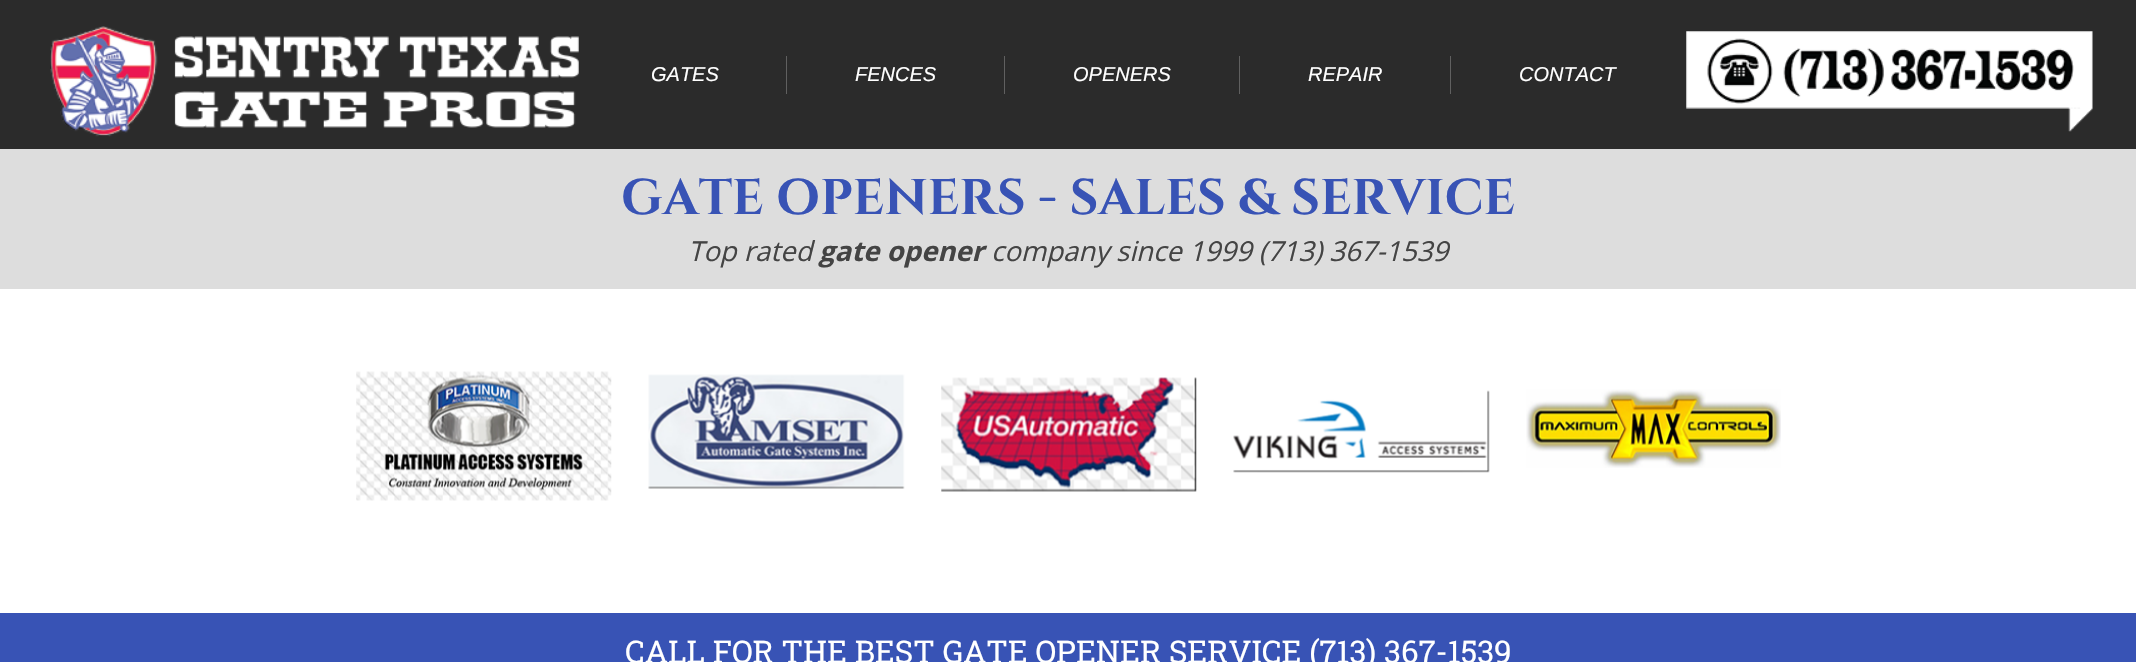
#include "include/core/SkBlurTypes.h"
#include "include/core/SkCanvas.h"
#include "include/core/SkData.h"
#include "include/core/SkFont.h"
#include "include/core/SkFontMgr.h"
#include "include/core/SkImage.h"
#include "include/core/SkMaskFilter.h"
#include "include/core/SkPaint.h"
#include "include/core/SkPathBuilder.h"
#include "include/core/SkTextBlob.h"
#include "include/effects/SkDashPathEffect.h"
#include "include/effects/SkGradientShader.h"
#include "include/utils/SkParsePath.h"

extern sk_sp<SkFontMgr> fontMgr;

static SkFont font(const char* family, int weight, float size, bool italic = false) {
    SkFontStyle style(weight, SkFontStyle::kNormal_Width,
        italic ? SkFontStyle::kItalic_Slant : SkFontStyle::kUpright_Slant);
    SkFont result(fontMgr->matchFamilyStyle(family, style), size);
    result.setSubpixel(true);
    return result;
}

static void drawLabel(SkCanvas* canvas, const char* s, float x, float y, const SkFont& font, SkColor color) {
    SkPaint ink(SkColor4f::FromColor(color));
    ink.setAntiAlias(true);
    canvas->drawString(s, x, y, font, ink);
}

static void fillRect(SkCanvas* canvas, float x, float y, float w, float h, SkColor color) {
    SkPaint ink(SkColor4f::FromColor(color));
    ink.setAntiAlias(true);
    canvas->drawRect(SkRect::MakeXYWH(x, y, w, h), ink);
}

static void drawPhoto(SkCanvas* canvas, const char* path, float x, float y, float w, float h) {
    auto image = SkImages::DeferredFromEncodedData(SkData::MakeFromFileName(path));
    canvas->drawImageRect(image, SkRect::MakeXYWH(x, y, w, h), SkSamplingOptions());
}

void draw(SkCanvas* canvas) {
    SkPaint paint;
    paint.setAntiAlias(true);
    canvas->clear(0xFFFFFFFF);
    fillRect(canvas, 0, 0, 2136, 149, 0xFF2B2B2B);
    drawPhoto(canvas, "assets/img1.png", 50, 26, 529, 111);
    SkFont font1 = font("Liberation Sans", 400, 20, true);
    drawLabel(canvas, "GATES", 651, 81, font1, 0xFFFFFFFF);
    fillRect(canvas, 786, 56, 1, 38, 0xFF606060);
    drawLabel(canvas, "FENCES", 855, 81, font1, 0xFFFFFFFF);
    fillRect(canvas, 1004, 56, 1, 38, 0xFF606060);
    drawLabel(canvas, "OPENERS", 1073, 81, font1, 0xFFFFFFFF);
    fillRect(canvas, 1239, 56, 1, 38, 0xFF606060);
    drawLabel(canvas, "REPAIR", 1308, 81, font1, 0xFFFFFFFF);
    fillRect(canvas, 1450, 56, 1, 38, 0xFF606060);
    drawLabel(canvas, "CONTACT", 1519, 81, font1, 0xFFFFFFFF);
    drawPhoto(canvas, "assets/img2.png", 1686, 31, 407, 101);
    fillRect(canvas, 0, 149, 2136, 140, 0xFFDDDDDD);
    SkFont font2 = font("Cinzel", 700, 50);
    drawLabel(canvas, "GATE OPENERS - SALES & SERVICE", 621, 214, font2, 0xFF3853B5);
    SkFont font3 = font("Open Sans", 400, 27.5f, true);
    drawLabel(canvas, "Top rated", 688, 261, font3, 0xFF444444);
    SkFont font4 = font("Open Sans", 700, 27.5f, true);
    drawLabel(canvas, "gate opener", 819, 261, font4, 0xFF444444);
    drawLabel(canvas, "company since 1999 (713) 367-1539", 991, 261, font3, 0xFF444444);
    drawPhoto(canvas, "assets/img3.png", 356, 371, 256, 130);
    drawPhoto(canvas, "assets/img4.png", 648, 374, 257, 115);
    drawPhoto(canvas, "assets/img5.png", 941, 377, 256, 115);
    drawPhoto(canvas, "assets/img6.png", 1233, 390, 257, 83);
    drawPhoto(canvas, "assets/img7.png", 1526, 389, 255, 79);
    fillRect(canvas, 0, 613, 2136, 49, 0xFF3853B5);
    SkFont font5 = font("Roboto Slab", 400, 31.25f);
    drawLabel(canvas, "CALL FOR THE BEST GATE OPENER SERVICE (713) 367-1539", 625, 663, font5, 0xFFFFFFFF);
}
